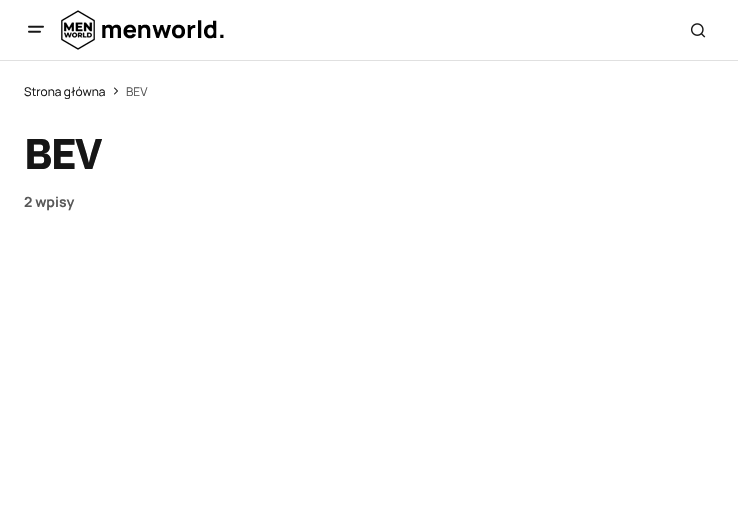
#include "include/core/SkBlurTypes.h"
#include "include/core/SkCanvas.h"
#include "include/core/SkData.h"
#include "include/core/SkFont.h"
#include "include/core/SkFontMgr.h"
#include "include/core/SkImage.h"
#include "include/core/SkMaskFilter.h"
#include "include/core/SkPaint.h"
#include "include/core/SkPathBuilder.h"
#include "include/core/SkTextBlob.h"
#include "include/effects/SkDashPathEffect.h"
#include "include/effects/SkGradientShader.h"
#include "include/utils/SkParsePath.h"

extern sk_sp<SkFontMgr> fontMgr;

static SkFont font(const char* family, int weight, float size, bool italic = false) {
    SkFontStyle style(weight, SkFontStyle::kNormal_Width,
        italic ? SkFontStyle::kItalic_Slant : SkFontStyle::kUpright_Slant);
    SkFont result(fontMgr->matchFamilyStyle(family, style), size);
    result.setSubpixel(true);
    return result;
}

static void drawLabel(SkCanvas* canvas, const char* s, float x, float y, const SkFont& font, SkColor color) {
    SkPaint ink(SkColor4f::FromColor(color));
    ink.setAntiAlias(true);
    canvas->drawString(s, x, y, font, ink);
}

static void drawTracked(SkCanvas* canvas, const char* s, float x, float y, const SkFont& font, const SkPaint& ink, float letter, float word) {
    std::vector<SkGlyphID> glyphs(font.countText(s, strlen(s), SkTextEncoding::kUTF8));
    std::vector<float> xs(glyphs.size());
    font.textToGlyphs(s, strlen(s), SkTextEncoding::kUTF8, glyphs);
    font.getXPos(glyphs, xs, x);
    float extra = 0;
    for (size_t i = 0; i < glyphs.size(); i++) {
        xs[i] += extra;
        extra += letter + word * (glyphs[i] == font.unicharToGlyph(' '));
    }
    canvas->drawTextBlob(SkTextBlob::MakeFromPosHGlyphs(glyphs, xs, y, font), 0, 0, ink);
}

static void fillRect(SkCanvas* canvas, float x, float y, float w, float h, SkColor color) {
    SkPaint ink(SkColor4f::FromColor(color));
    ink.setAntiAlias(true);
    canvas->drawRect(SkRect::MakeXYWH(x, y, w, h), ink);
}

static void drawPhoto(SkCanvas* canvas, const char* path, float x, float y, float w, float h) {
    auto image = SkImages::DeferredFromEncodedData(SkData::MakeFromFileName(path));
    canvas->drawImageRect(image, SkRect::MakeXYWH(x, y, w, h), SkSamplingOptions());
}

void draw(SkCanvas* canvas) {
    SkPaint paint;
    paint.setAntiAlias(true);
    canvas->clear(0xFFFFFFFF);
    drawPhoto(canvas, "assets/img1.png", 28, 25, 16, 8);
    drawPhoto(canvas, "assets/img2.png", 61, 10, 163, 40);
    drawPhoto(canvas, "assets/img3.png", 690, 23, 16, 15);
    fillRect(canvas, 0, 60, 738, 1, 0xFFE0E0E0);
    SkFont font1 = font("Manrope", 400, 12);
    drawLabel(canvas, "Strona główna", 24, 96, font1, 0xFF161616);
    drawPhoto(canvas, "assets/img4.png", 114, 87, 4, 8);
    drawLabel(canvas, "BEV", 126, 96, font1, 0xFF585858);
    SkFont font2 = font("IBM Plex Sans", 700, 43);
    paint.setColor(0xFF161616);
    drawTracked(canvas, "BEV", 24, 169, font2, paint, -2, 0);
    SkFont font3 = font("Manrope", 700, 14);
    drawLabel(canvas, "2 wpisy", 24, 207, font3, 0xFF585858);
}
